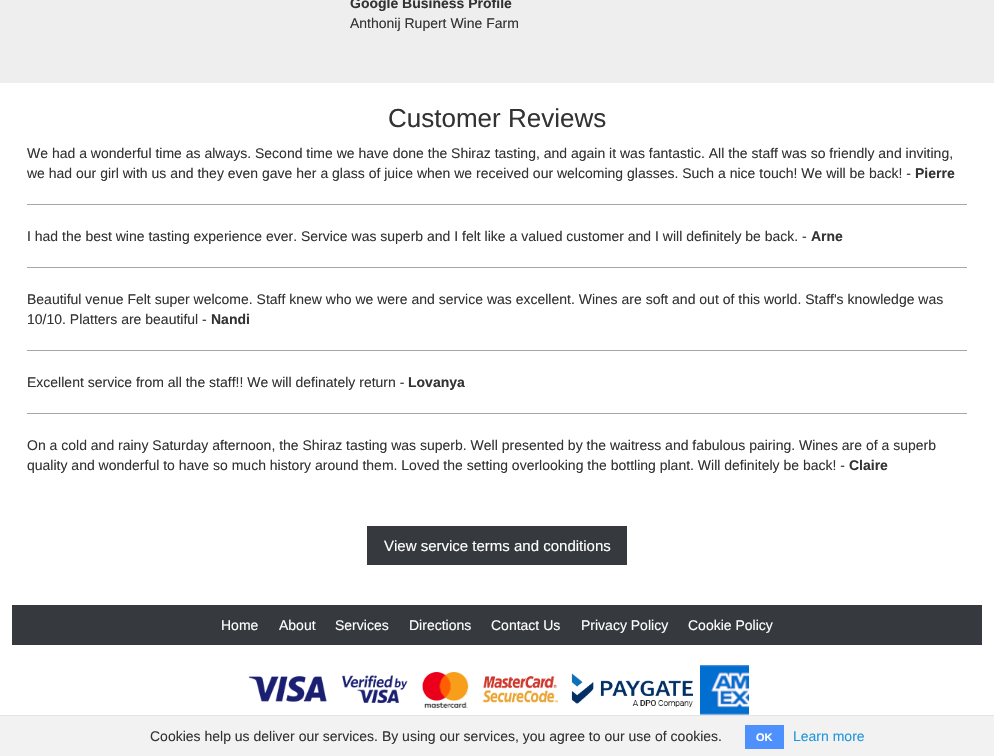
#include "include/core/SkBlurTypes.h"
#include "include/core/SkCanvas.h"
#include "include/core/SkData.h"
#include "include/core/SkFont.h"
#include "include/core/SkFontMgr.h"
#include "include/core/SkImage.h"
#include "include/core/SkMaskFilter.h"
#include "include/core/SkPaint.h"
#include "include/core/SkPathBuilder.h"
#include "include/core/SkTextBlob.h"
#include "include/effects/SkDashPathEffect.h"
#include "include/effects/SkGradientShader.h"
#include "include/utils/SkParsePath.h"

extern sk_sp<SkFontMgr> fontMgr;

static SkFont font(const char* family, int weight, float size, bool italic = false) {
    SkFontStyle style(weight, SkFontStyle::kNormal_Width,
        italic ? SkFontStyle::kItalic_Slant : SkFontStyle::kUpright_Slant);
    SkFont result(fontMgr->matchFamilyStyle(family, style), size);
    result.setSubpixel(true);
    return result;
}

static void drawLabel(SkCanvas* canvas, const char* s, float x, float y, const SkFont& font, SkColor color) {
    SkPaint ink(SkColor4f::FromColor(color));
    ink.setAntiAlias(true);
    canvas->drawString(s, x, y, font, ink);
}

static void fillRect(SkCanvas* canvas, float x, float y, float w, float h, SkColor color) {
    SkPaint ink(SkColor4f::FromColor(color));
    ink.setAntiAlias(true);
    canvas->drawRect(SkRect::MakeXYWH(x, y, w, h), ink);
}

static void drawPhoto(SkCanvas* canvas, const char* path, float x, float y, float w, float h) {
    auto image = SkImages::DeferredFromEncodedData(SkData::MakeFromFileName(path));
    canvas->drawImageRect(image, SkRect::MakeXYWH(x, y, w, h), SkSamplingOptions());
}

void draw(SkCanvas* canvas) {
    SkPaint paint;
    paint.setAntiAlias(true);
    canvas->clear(0xFFFFFFFF);
    fillRect(canvas, 0, 0, 994, 83, 0xFFEEEEEE);
    SkFont font1 = font("Liberation Sans", 700, 14);
    drawLabel(canvas, "Google Business Profile", 350, 8, font1, 0xFF333333);
    SkFont font2 = font("Liberation Sans", 400, 14);
    drawLabel(canvas, "Anthonij Rupert Wine Farm", 350, 28, font2, 0xFF333333);
    SkFont font3 = font("Liberation Sans", 400, 26);
    drawLabel(canvas, "Customer Reviews", 388, 127, font3, 0xFF333333);
    drawLabel(canvas, "We had a wonderful time as always. Second time we have done the Shiraz tasting, and again it was fantastic. All the staff was so friendly and inviting,", 27, 158, font2, 0xFF333333);
    drawLabel(canvas, "we had our girl with us and they even gave her a glass of juice when we received our welcoming glasses. Such a nice touch! We will be back! -", 27, 178, font2, 0xFF333333);
    drawLabel(canvas, "Pierre", 915, 178, font1, 0xFF333333);
    fillRect(canvas, 27, 204, 940, 1, 0xFFA6A6A6);
    drawLabel(canvas, "I had the best wine tasting experience ever. Service was superb and I felt like a valued customer and I will definitely be back. -", 27, 241, font2, 0xFF333333);
    drawLabel(canvas, "Arne", 811, 241, font1, 0xFF333333);
    fillRect(canvas, 27, 267, 940, 1, 0xFFA6A6A6);
    drawLabel(canvas, "Beautiful venue Felt super welcome. Staff knew who we were and service was excellent. Wines are soft and out of this world. Staff's knowledge was", 27, 304, font2, 0xFF333333);
    drawLabel(canvas, "10/10. Platters are beautiful -", 27, 324, font2, 0xFF333333);
    drawLabel(canvas, "Nandi", 211, 324, font1, 0xFF333333);
    fillRect(canvas, 27, 350, 940, 1, 0xFFA6A6A6);
    drawLabel(canvas, "Excellent service from all the staff!! We will definately return -", 27, 387, font2, 0xFF333333);
    drawLabel(canvas, "Lovanya", 408, 387, font1, 0xFF333333);
    fillRect(canvas, 27, 413, 940, 1, 0xFFA6A6A6);
    drawLabel(canvas, "On a cold and rainy Saturday afternoon, the Shiraz tasting was superb. Well presented by the waitress and fabulous pairing. Wines are of a superb", 27, 450, font2, 0xFF333333);
    drawLabel(canvas, "quality and wonderful to have so much history around them. Loved the setting overlooking the bottling plant. Will definitely be back! -", 27, 470, font2, 0xFF333333);
    drawLabel(canvas, "Claire", 849, 470, font1, 0xFF333333);
    fillRect(canvas, 367, 526, 260, 39, 0xFF36393E);
    SkFont font4 = font("Liberation Sans", 400, 15);
    drawLabel(canvas, "View service terms and conditions", 384, 551, font4, 0xFFFFFFFF);
    fillRect(canvas, 12, 605, 970, 40, 0xFF36393E);
    drawLabel(canvas, "Home", 221, 630, font2, 0xFFFFFFFF);
    drawLabel(canvas, "About", 279, 630, font2, 0xFFFFFFFF);
    drawLabel(canvas, "Services", 335, 630, font2, 0xFFFFFFFF);
    drawLabel(canvas, "Directions", 409, 630, font2, 0xFFFFFFFF);
    drawLabel(canvas, "Contact Us", 491, 630, font2, 0xFFFFFFFF);
    drawLabel(canvas, "Privacy Policy", 581, 630, font2, 0xFFFFFFFF);
    drawLabel(canvas, "Cookie Policy", 688, 630, font2, 0xFFFFFFFF);
    drawPhoto(canvas, "assets/img1.png", 248, 676, 79, 26);
    drawPhoto(canvas, "assets/img2.png", 342, 675, 66, 28);
    drawPhoto(canvas, "assets/img3.png", 422, 672, 47, 36);
    drawPhoto(canvas, "assets/img4.png", 482, 676, 76, 27);
    drawPhoto(canvas, "assets/img5.png", 571, 673, 122, 35);
    drawPhoto(canvas, "assets/img6.png", 700, 665, 49, 50);
    fillRect(canvas, 0, 716, 994, 40, 0xFFF2F2F2);
    fillRect(canvas, 0, 715, 994, 1, 0xFFE4E4E4);
    drawLabel(canvas, "Cookies help us deliver our services. By using our services, you agree to our use of cookies.", 150, 741, font2, 0xFF333333);
    fillRect(canvas, 745, 725, 39, 24, 0xFF4D90FE);
    SkFont font5 = font("Liberation Sans", 700, 11);
    drawLabel(canvas, "OK", 756, 741, font5, 0xFFFFFFFF);
    drawLabel(canvas, "Learn more", 793, 741, font2, 0xFF2297DA);
}
